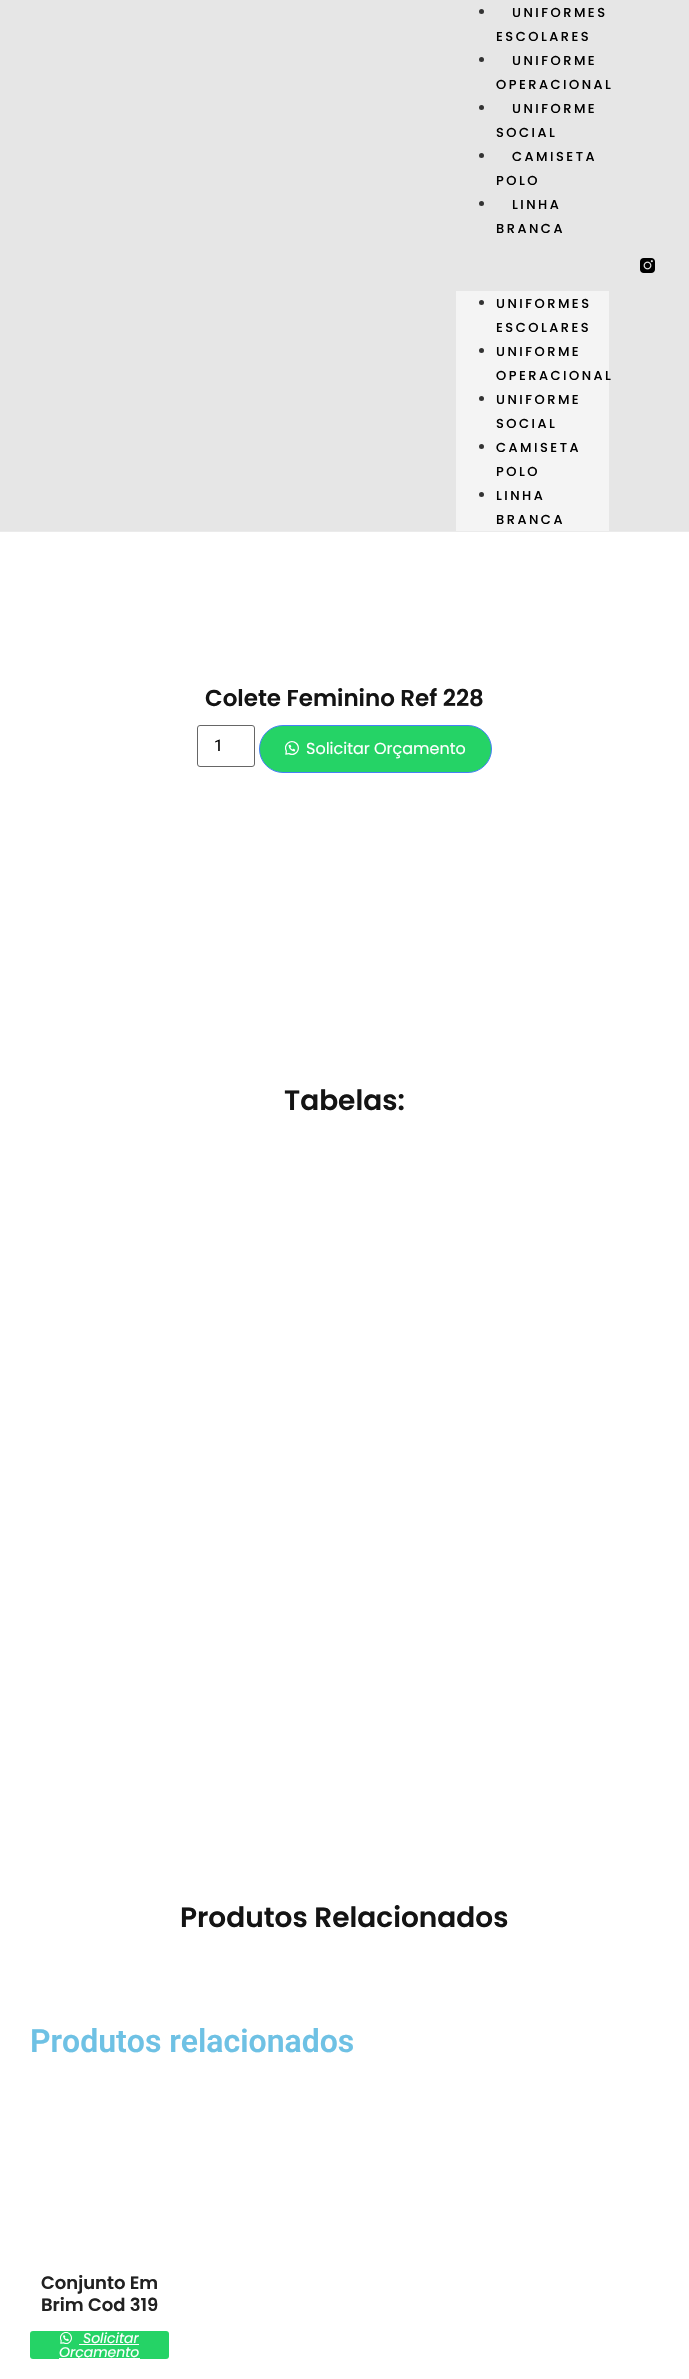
#include "include/core/SkBlurTypes.h"
#include "include/core/SkCanvas.h"
#include "include/core/SkData.h"
#include "include/core/SkFont.h"
#include "include/core/SkFontMgr.h"
#include "include/core/SkImage.h"
#include "include/core/SkMaskFilter.h"
#include "include/core/SkPaint.h"
#include "include/core/SkPathBuilder.h"
#include "include/core/SkTextBlob.h"
#include "include/effects/SkDashPathEffect.h"
#include "include/effects/SkGradientShader.h"
#include "include/utils/SkParsePath.h"

extern sk_sp<SkFontMgr> fontMgr;

static SkFont font(const char* family, int weight, float size, bool italic = false) {
    SkFontStyle style(weight, SkFontStyle::kNormal_Width,
        italic ? SkFontStyle::kItalic_Slant : SkFontStyle::kUpright_Slant);
    SkFont result(fontMgr->matchFamilyStyle(family, style), size);
    result.setSubpixel(true);
    return result;
}

static void drawLabel(SkCanvas* canvas, const char* s, float x, float y, const SkFont& font, SkColor color) {
    SkPaint ink(SkColor4f::FromColor(color));
    ink.setAntiAlias(true);
    canvas->drawString(s, x, y, font, ink);
}

static void drawTracked(SkCanvas* canvas, const char* s, float x, float y, const SkFont& font, const SkPaint& ink, float letter, float word) {
    std::vector<SkGlyphID> glyphs(font.countText(s, strlen(s), SkTextEncoding::kUTF8));
    std::vector<float> xs(glyphs.size());
    font.textToGlyphs(s, strlen(s), SkTextEncoding::kUTF8, glyphs);
    font.getXPos(glyphs, xs, x);
    float extra = 0;
    for (size_t i = 0; i < glyphs.size(); i++) {
        xs[i] += extra;
        extra += letter + word * (glyphs[i] == font.unicharToGlyph(' '));
    }
    canvas->drawTextBlob(SkTextBlob::MakeFromPosHGlyphs(glyphs, xs, y, font), 0, 0, ink);
}

static void fillRect(SkCanvas* canvas, float x, float y, float w, float h, SkColor color) {
    SkPaint ink(SkColor4f::FromColor(color));
    ink.setAntiAlias(true);
    canvas->drawRect(SkRect::MakeXYWH(x, y, w, h), ink);
}

static void fillRRect(SkCanvas* canvas, float x, float y, float w, float h, float radius, SkColor color) {
    SkPaint ink(SkColor4f::FromColor(color));
    ink.setAntiAlias(true);
    canvas->drawRoundRect(SkRect::MakeXYWH(x, y, w, h), radius, radius, ink);
}

static void drawPhoto(SkCanvas* canvas, const char* path, float x, float y, float w, float h) {
    auto image = SkImages::DeferredFromEncodedData(SkData::MakeFromFileName(path));
    canvas->drawImageRect(image, SkRect::MakeXYWH(x, y, w, h), SkSamplingOptions());
}

void draw(SkCanvas* canvas) {
    SkPaint paint;
    paint.setAntiAlias(true);
    canvas->clear(0xFFFFFFFF);
    fillRect(canvas, 0, 0, 689, 531, 0xFFE6E6E6);
    fillRect(canvas, 0, 531, 689, 1, 0xFFEBEBEB);
    paint.setColor(0xFF333333);
    canvas->drawCircle(481.5f, 11.5f, 2.5f, paint);
    SkFont font1 = font("Poppins", 500, 13);
    paint.setColor(0xFF000000);
    drawTracked(canvas, "UNIFORMES", 512, 17, font1, paint, 2.5f, 0);
    drawTracked(canvas, "ESCOLARES", 496, 41, font1, paint, 2.5f, 0);
    paint.setColor(0xFF333333);
    canvas->drawCircle(481.5f, 59.5f, 2.5f, paint);
    paint.setColor(0xFF000000);
    drawTracked(canvas, "UNIFORME", 512, 65, font1, paint, 2.5f, 0);
    drawTracked(canvas, "OPERACIONAL", 496, 89, font1, paint, 2.5f, 0);
    paint.setColor(0xFF333333);
    canvas->drawCircle(481.5f, 107.5f, 2.5f, paint);
    paint.setColor(0xFF000000);
    drawTracked(canvas, "UNIFORME", 512, 113, font1, paint, 2.5f, 0);
    drawTracked(canvas, "SOCIAL", 496, 137, font1, paint, 2.5f, 0);
    paint.setColor(0xFF333333);
    canvas->drawCircle(481.5f, 155.5f, 2.5f, paint);
    paint.setColor(0xFF000000);
    drawTracked(canvas, "CAMISETA", 512, 161, font1, paint, 2.5f, 0);
    drawTracked(canvas, "POLO", 496, 185, font1, paint, 2.5f, 0);
    paint.setColor(0xFF333333);
    canvas->drawCircle(481.5f, 203.5f, 2.5f, paint);
    paint.setColor(0xFF000000);
    drawTracked(canvas, "LINHA", 512, 209, font1, paint, 2.5f, 0);
    drawTracked(canvas, "BRANCA", 496, 233, font1, paint, 2.5f, 0);
    fillRect(canvas, 456, 291, 153, 240, 0xFFF4F4F4);
    paint.setColor(0xFF333333);
    canvas->drawCircle(481.5f, 302.5f, 2.5f, paint);
    paint.setColor(0xFF000000);
    drawTracked(canvas, "UNIFORMES", 496, 308, font1, paint, 2.5f, 0);
    drawTracked(canvas, "ESCOLARES", 496, 332, font1, paint, 2.5f, 0);
    paint.setColor(0xFF333333);
    canvas->drawCircle(481.5f, 350.5f, 2.5f, paint);
    paint.setColor(0xFF000000);
    drawTracked(canvas, "UNIFORME", 496, 356, font1, paint, 2.5f, 0);
    drawTracked(canvas, "OPERACIONAL", 496, 380, font1, paint, 2.5f, 0);
    paint.setColor(0xFF333333);
    canvas->drawCircle(481.5f, 398.5f, 2.5f, paint);
    paint.setColor(0xFF000000);
    drawTracked(canvas, "UNIFORME", 496, 404, font1, paint, 2.5f, 0);
    drawTracked(canvas, "SOCIAL", 496, 428, font1, paint, 2.5f, 0);
    paint.setColor(0xFF333333);
    canvas->drawCircle(481.5f, 446.5f, 2.5f, paint);
    paint.setColor(0xFF000000);
    drawTracked(canvas, "CAMISETA", 496, 452, font1, paint, 2.5f, 0);
    drawTracked(canvas, "POLO", 496, 476, font1, paint, 2.5f, 0);
    paint.setColor(0xFF333333);
    canvas->drawCircle(481.5f, 494.5f, 2.5f, paint);
    paint.setColor(0xFF000000);
    drawTracked(canvas, "LINHA", 496, 500, font1, paint, 2.5f, 0);
    drawTracked(canvas, "BRANCA", 496, 524, font1, paint, 2.5f, 0);
    drawPhoto(canvas, "assets/img1.png", 640, 258, 15, 15);
    SkFont font2 = font("Poppins", 600, 23);
    drawLabel(canvas, "Colete Feminino Ref 228", 205, 706, font2, 0xFF141414);
    paint.setStroke(true);
    paint.setStrokeWidth(1);
    paint.setColor(0xFF666666);
    canvas->drawRoundRect(SkRect::MakeXYWH(197.5f, 725.5f, 57, 41), 2.5f, 2.5f, paint);
    SkFont font3 = font("Roboto", 400, 16);
    drawLabel(canvas, "1", 214, 751, font3, 0xFF000000);
    paint.setStroke(false);
    paint.setColor(0xFF25D366);
    canvas->drawRoundRect(SkRect::MakeXYWH(259.5f, 725.5f, 232, 47), 23.5f, 23.5f, paint);
    paint.setStroke(true);
    paint.setColor(0xFF467FF7);
    canvas->drawRoundRect(SkRect::MakeXYWH(259.5f, 725.5f, 232, 47), 23.5f, 23.5f, paint);
    drawPhoto(canvas, "assets/img2.png", 285, 741, 14, 14);
    SkFont font4 = font("Poppins", 400, 16);
    drawLabel(canvas, "Solicitar Orçamento", 306, 754, font4, 0xFFFFFFFF);
    SkFont font5 = font("Poppins", 600, 28);
    drawLabel(canvas, "Tabelas:", 284, 1110, font5, 0xFF141414);
    drawLabel(canvas, "Produtos Relacionados", 180, 1927, font5, 0xFF141414);
    SkFont font6 = font("Roboto", 600, 32);
    drawLabel(canvas, "Produtos relacionados", 30, 2052, font6, 0xFF6EC1E4);
    SkFont font7 = font("Poppins", 600, 18);
    drawLabel(canvas, "Conjunto Em", 41, 2289, font7, 0xFF212121);
    drawLabel(canvas, "Brim Cod 319", 41, 2311, font7, 0xFF212121);
    fillRRect(canvas, 30, 2331, 139, 28, 3, 0xFF25D366);
    drawPhoto(canvas, "assets/img3.png", 60, 2332, 12, 12);
    SkFont font8 = font("Poppins", 400, 14, true);
    drawLabel(canvas, "Solicitar", 83, 2343, font8, 0xFFFFFFFF);
    fillRect(canvas, 79, 2344, 60, 1, 0xFFFFFFFF);
    fillRect(canvas, 59, 2358, 81, 1, 0xFFFFFFFF);
    drawLabel(canvas, "Orçamento", 59, 2357, font8, 0xFFFFFFFF);
}
